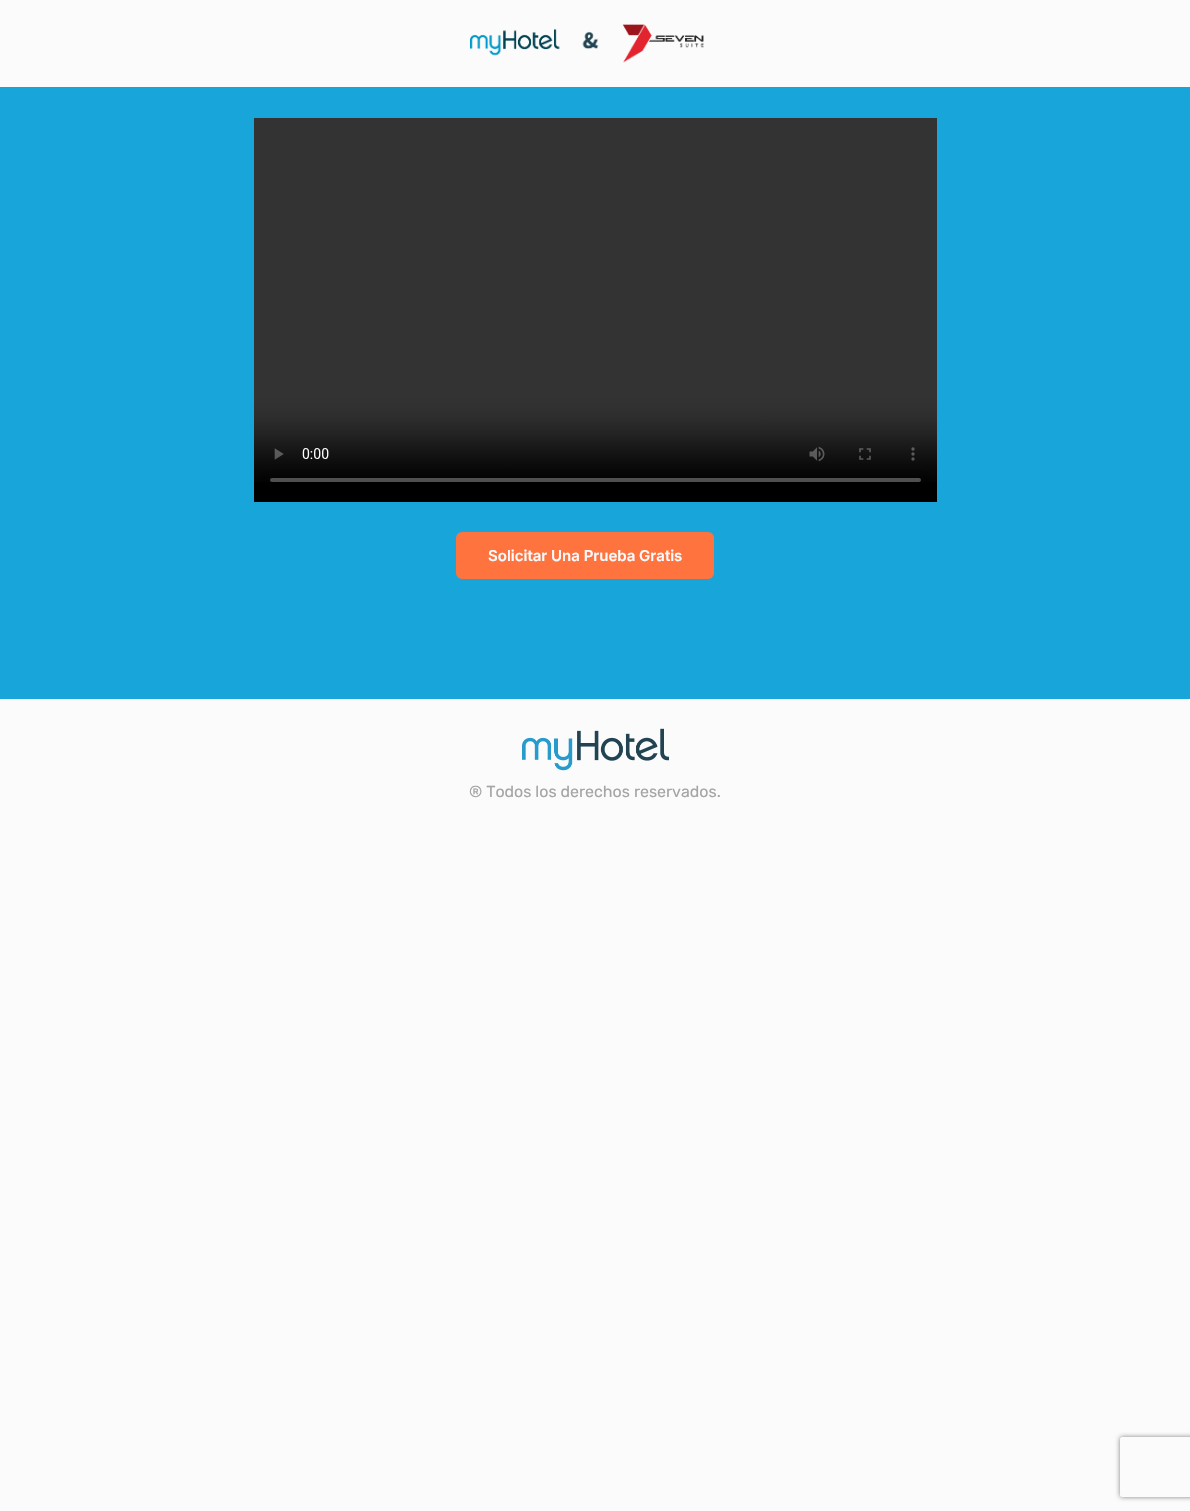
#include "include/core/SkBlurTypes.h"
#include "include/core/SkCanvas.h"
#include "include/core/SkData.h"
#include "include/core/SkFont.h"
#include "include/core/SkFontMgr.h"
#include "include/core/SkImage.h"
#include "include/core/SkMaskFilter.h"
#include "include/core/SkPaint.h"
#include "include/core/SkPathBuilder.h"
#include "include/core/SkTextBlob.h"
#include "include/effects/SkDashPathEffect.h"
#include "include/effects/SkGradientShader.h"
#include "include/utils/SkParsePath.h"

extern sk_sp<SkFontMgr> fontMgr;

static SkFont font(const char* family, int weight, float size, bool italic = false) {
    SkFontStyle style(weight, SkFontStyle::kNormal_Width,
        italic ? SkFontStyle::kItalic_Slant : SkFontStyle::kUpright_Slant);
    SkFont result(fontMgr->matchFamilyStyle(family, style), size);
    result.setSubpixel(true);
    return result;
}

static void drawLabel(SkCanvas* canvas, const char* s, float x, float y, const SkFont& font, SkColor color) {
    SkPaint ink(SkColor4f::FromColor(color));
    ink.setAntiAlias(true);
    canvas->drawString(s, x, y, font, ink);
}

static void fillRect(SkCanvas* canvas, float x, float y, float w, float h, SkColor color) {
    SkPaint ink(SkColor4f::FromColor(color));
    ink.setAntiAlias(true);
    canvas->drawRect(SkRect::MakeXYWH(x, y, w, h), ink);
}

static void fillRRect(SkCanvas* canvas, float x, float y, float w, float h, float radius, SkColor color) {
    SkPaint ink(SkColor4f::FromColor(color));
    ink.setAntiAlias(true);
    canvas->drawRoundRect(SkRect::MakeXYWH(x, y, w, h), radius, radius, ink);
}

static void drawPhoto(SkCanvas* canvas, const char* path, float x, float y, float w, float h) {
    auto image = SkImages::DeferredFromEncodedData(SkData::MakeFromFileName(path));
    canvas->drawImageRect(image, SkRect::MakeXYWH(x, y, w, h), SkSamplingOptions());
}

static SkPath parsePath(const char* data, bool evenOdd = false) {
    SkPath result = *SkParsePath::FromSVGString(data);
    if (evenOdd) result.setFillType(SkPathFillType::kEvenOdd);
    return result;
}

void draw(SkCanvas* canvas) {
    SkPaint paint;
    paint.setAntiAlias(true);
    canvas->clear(0xFFFBFBFB);
    drawPhoto(canvas, "assets/img1.png", 470, 24, 234, 39);
    fillRect(canvas, 0, 87, 1190, 612, 0xFF17A5DA);
    fillRect(canvas, 254, 482, 683, 20, 0xFF000000);
    drawPhoto(canvas, "assets/img2.png", 254, 118, 683, 364);
    fillRRect(canvas, 456, 532, 258, 47, 6, 0xFFFF743E);
    SkFont font1 = font("Inter", 600, 15);
    drawLabel(canvas, "Solicitar Una Prueba Gratis", 488, 561, font1, 0xFFF8FBFE);
    drawPhoto(canvas, "assets/img3.png", 522, 728, 147, 43);
    SkFont font2 = font("Rubik", 300, 16);
    drawLabel(canvas, "® Todos los derechos reservados.", 469, 797, font2, 0xFFA5A5A5);
    canvas->save();
    canvas->clipPath(parsePath("M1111 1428H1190V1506H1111ZM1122 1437H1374C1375 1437 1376 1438 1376 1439V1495C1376 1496 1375 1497 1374 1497H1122C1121 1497 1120 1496 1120 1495V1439C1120 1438 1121 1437 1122 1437Z", true), true);
    paint.setColor(0xFF808080);
    paint.setMaskFilter(SkMaskFilter::MakeBlur(kNormal_SkBlurStyle, 2.5f));
    canvas->drawRoundRect(SkRect::MakeXYWH(1120, 1437, 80, 60), 2, 2, paint);
    paint.setMaskFilter(nullptr);
    canvas->restore();
}
